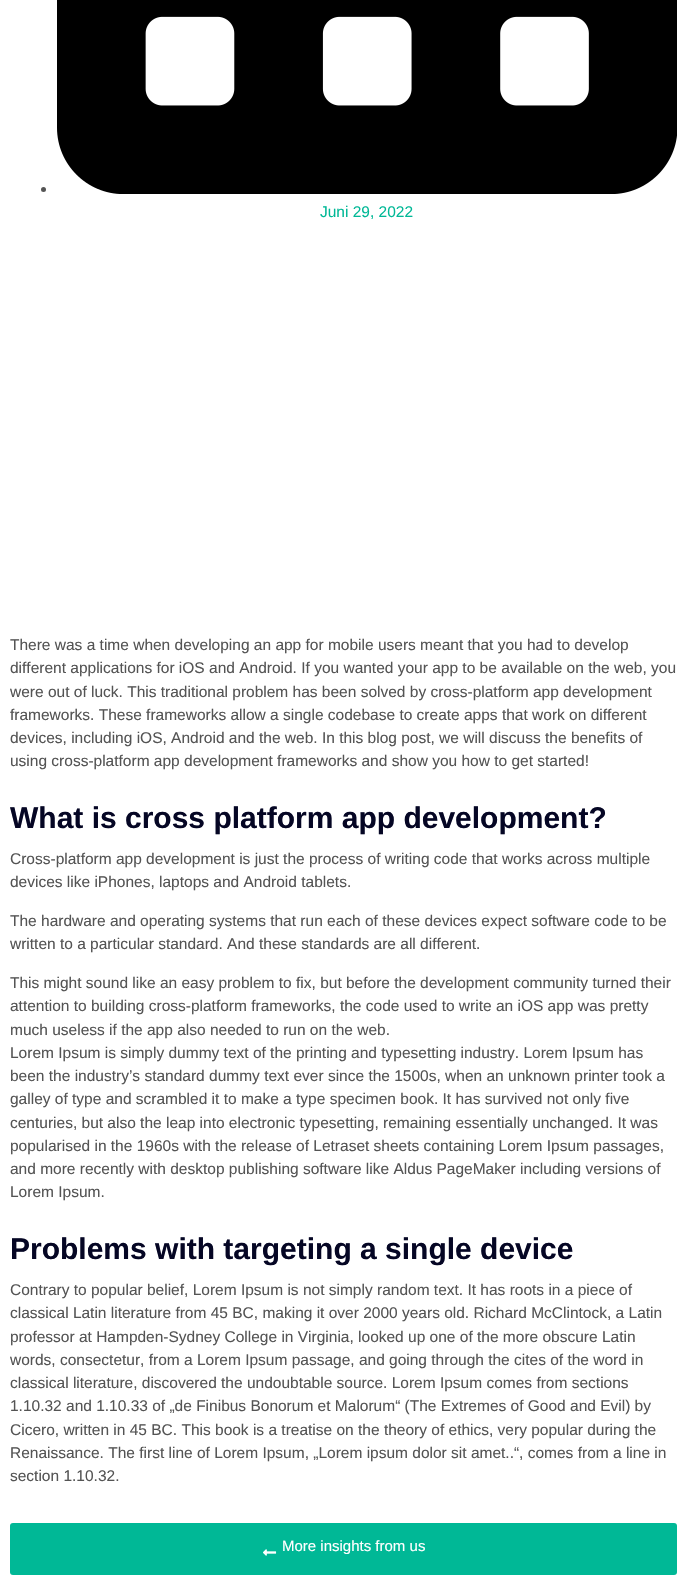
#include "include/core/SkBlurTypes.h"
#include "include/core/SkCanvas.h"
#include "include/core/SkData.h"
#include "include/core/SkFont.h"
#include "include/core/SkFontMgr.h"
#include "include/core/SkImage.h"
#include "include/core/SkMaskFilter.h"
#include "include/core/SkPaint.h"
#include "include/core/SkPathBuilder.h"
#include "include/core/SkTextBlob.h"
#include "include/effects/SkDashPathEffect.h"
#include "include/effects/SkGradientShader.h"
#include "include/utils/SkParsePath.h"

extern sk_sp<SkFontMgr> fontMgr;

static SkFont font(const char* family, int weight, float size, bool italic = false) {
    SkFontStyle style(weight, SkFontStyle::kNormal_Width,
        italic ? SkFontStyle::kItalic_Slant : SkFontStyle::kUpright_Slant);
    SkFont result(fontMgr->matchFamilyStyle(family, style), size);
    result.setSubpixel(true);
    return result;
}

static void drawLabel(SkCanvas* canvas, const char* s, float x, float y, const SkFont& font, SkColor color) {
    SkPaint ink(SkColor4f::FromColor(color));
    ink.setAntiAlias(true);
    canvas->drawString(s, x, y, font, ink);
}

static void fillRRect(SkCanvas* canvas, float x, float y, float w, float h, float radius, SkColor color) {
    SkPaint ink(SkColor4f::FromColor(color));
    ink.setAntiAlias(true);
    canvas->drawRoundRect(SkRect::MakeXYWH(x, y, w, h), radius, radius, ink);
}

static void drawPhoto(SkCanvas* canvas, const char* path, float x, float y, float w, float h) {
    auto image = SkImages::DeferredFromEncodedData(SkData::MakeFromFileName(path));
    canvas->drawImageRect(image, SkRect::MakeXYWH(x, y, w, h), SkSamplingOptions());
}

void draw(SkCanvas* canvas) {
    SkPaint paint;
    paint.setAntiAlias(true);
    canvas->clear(0xFFFFFFFF);
    paint.setColor(0xFF545454);
    canvas->drawCircle(43.5f, 189.5f, 2.5f, paint);
    drawPhoto(canvas, "assets/img1.png", 57, 0, 620, 194);
    SkFont font1 = font("Liberation Sans", 400, 15.5f);
    drawLabel(canvas, "Juni 29, 2022", 320, 217, font1, 0xFF00B896);
    drawLabel(canvas, "There was a time when developing an app for mobile users meant that you had to develop", 10, 650, font1, 0xFF545454);
    drawLabel(canvas, "different applications for iOS and Android. If you wanted your app to be available on the web, you", 10, 673, font1, 0xFF545454);
    drawLabel(canvas, "were out of luck. This traditional problem has been solved by cross-platform app development", 10, 697, font1, 0xFF545454);
    drawLabel(canvas, "frameworks. These frameworks allow a single codebase to create apps that work on different", 10, 720, font1, 0xFF545454);
    drawLabel(canvas, "devices, including iOS, Android and the web. In this blog post, we will discuss the benefits of", 10, 743, font1, 0xFF545454);
    drawLabel(canvas, "using cross-platform app development frameworks and show you how to get started!", 10, 766, font1, 0xFF545454);
    SkFont font2 = font("Liberation Sans", 700, 30);
    drawLabel(canvas, "What is cross platform app development?", 10, 828, font2, 0xFF050624);
    drawLabel(canvas, "Cross-platform app development is just the process of writing code that works across multiple", 10, 864, font1, 0xFF545454);
    drawLabel(canvas, "devices like iPhones, laptops and Android tablets.", 10, 887, font1, 0xFF545454);
    drawLabel(canvas, "The hardware and operating systems that run each of these devices expect software code to be", 10, 926, font1, 0xFF545454);
    drawLabel(canvas, "written to a particular standard. And these standards are all different.", 10, 949, font1, 0xFF545454);
    drawLabel(canvas, "This might sound like an easy problem to fix, but before the development community turned their", 10, 988, font1, 0xFF545454);
    drawLabel(canvas, "attention to building cross-platform frameworks, the code used to write an iOS app was pretty", 10, 1011, font1, 0xFF545454);
    drawLabel(canvas, "much useless if the app also needed to run on the web.", 10, 1035, font1, 0xFF545454);
    drawLabel(canvas, "Lorem Ipsum is simply dummy text of the printing and typesetting industry. Lorem Ipsum has", 10, 1058, font1, 0xFF545454);
    drawLabel(canvas, "been the industry’s standard dummy text ever since the 1500s, when an unknown printer took a", 10, 1081, font1, 0xFF545454);
    drawLabel(canvas, "galley of type and scrambled it to make a type specimen book. It has survived not only five", 10, 1104, font1, 0xFF545454);
    drawLabel(canvas, "centuries, but also the leap into electronic typesetting, remaining essentially unchanged. It was", 10, 1128, font1, 0xFF545454);
    drawLabel(canvas, "popularised in the 1960s with the release of Letraset sheets containing Lorem Ipsum passages,", 10, 1151, font1, 0xFF545454);
    drawLabel(canvas, "and more recently with desktop publishing software like Aldus PageMaker including versions of", 10, 1174, font1, 0xFF545454);
    drawLabel(canvas, "Lorem Ipsum.", 10, 1197, font1, 0xFF545454);
    drawLabel(canvas, "Problems with targeting a single device", 10, 1259, font2, 0xFF050624);
    drawLabel(canvas, "Contrary to popular belief, Lorem Ipsum is not simply random text. It has roots in a piece of", 10, 1295, font1, 0xFF545454);
    drawLabel(canvas, "classical Latin literature from 45 BC, making it over 2000 years old. Richard McClintock, a Latin", 10, 1318, font1, 0xFF545454);
    drawLabel(canvas, "professor at Hampden-Sydney College in Virginia, looked up one of the more obscure Latin", 10, 1342, font1, 0xFF545454);
    drawLabel(canvas, "words, consectetur, from a Lorem Ipsum passage, and going through the cites of the word in", 10, 1365, font1, 0xFF545454);
    drawLabel(canvas, "classical literature, discovered the undoubtable source. Lorem Ipsum comes from sections", 10, 1388, font1, 0xFF545454);
    drawLabel(canvas, "1.10.32 and 1.10.33 of „de Finibus Bonorum et Malorum“ (The Extremes of Good and Evil) by", 10, 1411, font1, 0xFF545454);
    drawLabel(canvas, "Cicero, written in 45 BC. This book is a treatise on the theory of ethics, very popular during the", 10, 1435, font1, 0xFF545454);
    drawLabel(canvas, "Renaissance. The first line of Lorem Ipsum, „Lorem ipsum dolor sit amet..“, comes from a line in", 10, 1458, font1, 0xFF545454);
    drawLabel(canvas, "section 1.10.32.", 10, 1481, font1, 0xFF545454);
    fillRRect(canvas, 10, 1523, 667, 52, 3, 0xFF00B896);
    drawPhoto(canvas, "assets/img2.png", 263, 1549, 14, 7);
    SkFont font3 = font("Liberation Sans", 400, 15);
    drawLabel(canvas, "More insights from us", 282, 1551, font3, 0xFFFFFFFF);
}
